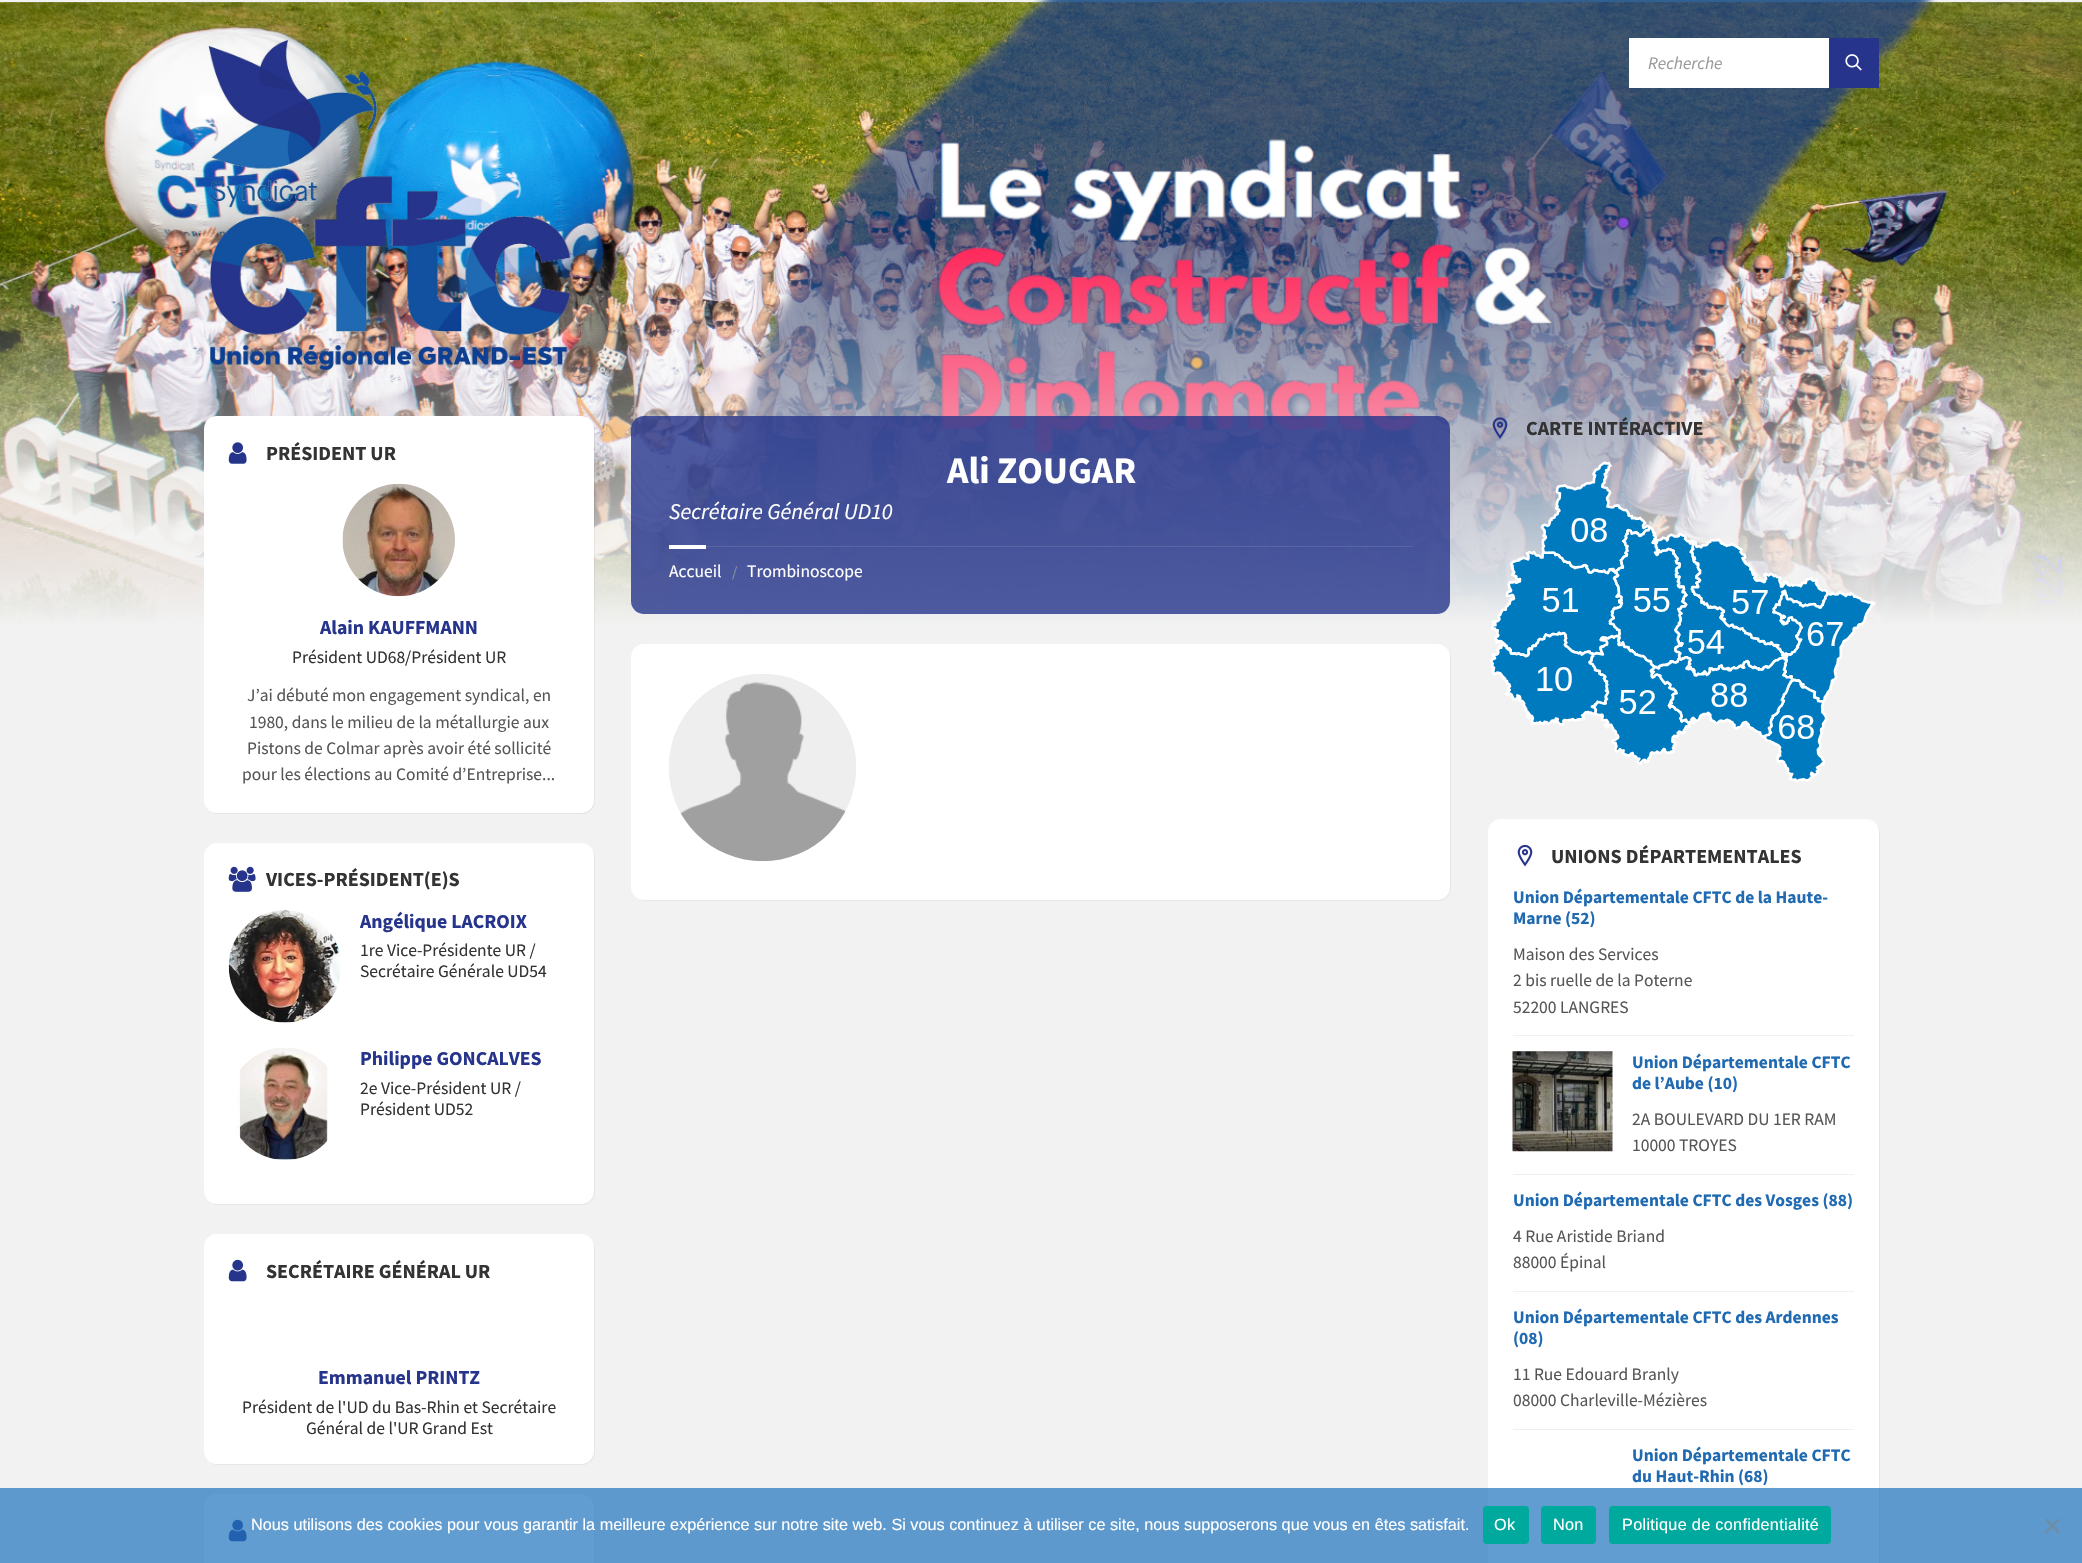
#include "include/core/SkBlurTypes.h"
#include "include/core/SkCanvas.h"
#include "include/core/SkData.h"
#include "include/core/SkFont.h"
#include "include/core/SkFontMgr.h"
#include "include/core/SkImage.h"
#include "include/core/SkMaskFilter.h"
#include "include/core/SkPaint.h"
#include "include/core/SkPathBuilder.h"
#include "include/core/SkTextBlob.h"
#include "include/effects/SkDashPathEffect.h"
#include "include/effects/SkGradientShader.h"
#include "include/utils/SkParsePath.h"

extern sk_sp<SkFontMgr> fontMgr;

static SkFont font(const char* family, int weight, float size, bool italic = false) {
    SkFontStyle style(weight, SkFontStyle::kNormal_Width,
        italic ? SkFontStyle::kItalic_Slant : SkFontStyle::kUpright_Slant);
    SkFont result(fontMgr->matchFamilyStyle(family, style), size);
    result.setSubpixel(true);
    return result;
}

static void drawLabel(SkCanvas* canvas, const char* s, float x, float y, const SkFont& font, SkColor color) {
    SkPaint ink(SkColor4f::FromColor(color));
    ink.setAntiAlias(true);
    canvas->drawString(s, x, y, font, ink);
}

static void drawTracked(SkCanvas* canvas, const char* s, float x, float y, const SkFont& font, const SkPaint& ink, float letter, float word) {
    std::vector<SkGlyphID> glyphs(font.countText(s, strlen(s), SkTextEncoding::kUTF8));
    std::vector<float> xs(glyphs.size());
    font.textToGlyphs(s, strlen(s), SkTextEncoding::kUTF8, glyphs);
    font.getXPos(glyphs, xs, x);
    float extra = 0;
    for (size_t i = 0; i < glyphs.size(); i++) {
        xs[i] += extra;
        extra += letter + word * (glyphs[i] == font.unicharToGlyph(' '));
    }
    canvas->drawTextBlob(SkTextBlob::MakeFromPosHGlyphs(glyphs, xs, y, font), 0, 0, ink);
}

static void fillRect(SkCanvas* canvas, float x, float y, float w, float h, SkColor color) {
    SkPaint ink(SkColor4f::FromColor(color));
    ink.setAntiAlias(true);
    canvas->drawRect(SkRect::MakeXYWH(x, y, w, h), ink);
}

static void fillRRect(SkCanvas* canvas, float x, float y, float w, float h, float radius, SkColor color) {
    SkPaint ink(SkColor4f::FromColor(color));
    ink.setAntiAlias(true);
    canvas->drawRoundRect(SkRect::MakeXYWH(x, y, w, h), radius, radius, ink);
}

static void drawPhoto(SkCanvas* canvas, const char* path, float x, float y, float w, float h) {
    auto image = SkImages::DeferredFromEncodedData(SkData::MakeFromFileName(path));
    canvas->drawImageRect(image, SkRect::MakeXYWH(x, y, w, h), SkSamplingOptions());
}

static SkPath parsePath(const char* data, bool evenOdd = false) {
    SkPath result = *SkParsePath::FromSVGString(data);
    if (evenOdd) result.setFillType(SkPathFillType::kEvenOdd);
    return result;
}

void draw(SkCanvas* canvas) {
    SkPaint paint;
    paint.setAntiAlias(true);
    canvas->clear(0xFFF2F2F2);
    drawPhoto(canvas, "assets/img1.png", 0, 0, 2082, 625);
    drawPhoto(canvas, "assets/img2.png", 208, 38, 364, 334);
    fillRect(canvas, 1629, 38, 200, 50, 0xFFFFFFFF);
    SkFont font1 = font("Source Sans Pro", 400, 17.5f, true);
    drawLabel(canvas, "Recherche", 1648, 69, font1, 0xFF9A9A9A);
    fillRect(canvas, 1829, 38, 50, 50, 0xFF26348B);
    drawPhoto(canvas, "assets/img3.png", 1845, 54, 17, 17);
    paint.setColor(0x0D000000);
    canvas->drawPath(parsePath("M208 810C211 812 214 814 218 814H582C589 814 595 808 595 801V431C595 428 594 426 593 423C593 425 594 427 594 429V800C594 807 588 812 581 812H216C213 812 210 811 208 810Z"), paint);
    fillRRect(canvas, 204, 416, 390, 397, 13, 0xFFFFFFFF);
    drawPhoto(canvas, "assets/img4.png", 228, 442, 19, 22);
    SkFont font2 = font("Source Sans Pro", 700, 20);
    drawLabel(canvas, "PRÉSIDENT UR", 266, 460, font2, 0xFF333333);
    drawPhoto(canvas, "assets/img5.png", 342, 483, 113, 114);
    SkFont font3 = font("Source Sans Pro", 700, 19.75f);
    drawLabel(canvas, "Alain KAUFFMANN", 320, 634, font3, 0xFF26348B);
    SkFont font4 = font("Source Sans Pro", 400, 17.5f);
    drawLabel(canvas, "Président UD68/Président UR", 292, 663, font4, 0xFF333333);
    drawLabel(canvas, "J’ai débuté mon engagement syndical, en", 247, 701, font4, 0xFF565656);
    drawLabel(canvas, "1980, dans le milieu de la métallurgie aux", 249, 728, font4, 0xFF565656);
    drawLabel(canvas, "Pistons de Colmar après avoir été sollicité", 247, 754, font4, 0xFF565656);
    drawLabel(canvas, "pour les élections au Comité d’Entreprise...", 242, 780, font4, 0xFF565656);
    paint.setColor(0xFFE6E6E6);
    canvas->drawPath(parsePath("M209 1202C212 1204 215 1205 218 1205H582C589 1205 595 1199 595 1192V857C595 854 594 851 592 849C593 851 594 853 594 855V1191C594 1198 588 1204 581 1204H216C214 1204 211 1203 209 1202Z"), paint);
    fillRRect(canvas, 204, 843, 390, 361, 13, 0xFFFFFFFF);
    drawPhoto(canvas, "assets/img6.png", 228, 866, 28, 26);
    drawLabel(canvas, "VICES-PRÉSIDENT(E)S", 266, 886, font2, 0xFF333333);
    drawPhoto(canvas, "assets/img7.png", 228, 910, 113, 113);
    drawLabel(canvas, "Angélique LACROIX", 360, 928, font3, 0xFF26348B);
    drawLabel(canvas, "1re Vice-Présidente UR /", 360, 956, font4, 0xFF333333);
    drawLabel(canvas, "Secrétaire Générale UD54", 360, 977, font4, 0xFF333333);
    drawPhoto(canvas, "assets/img8.png", 237, 1048, 92, 112);
    drawLabel(canvas, "Philippe GONCALVES", 360, 1065, font3, 0xFF26348B);
    drawLabel(canvas, "2e Vice-Président UR /", 360, 1094, font4, 0xFF333333);
    drawLabel(canvas, "Président UD52", 360, 1115, font4, 0xFF333333);
    canvas->drawPath(parsePath("M209 1462C212 1464 215 1465 218 1465H582C589 1465 595 1459 595 1452V1248C595 1245 594 1242 592 1239C593 1241 594 1244 594 1246V1451C594 1458 588 1464 581 1464H216C214 1464 211 1463 209 1462Z"), paint);
    fillRRect(canvas, 204, 1234, 390, 230, 13, 0xFFFFFFFF);
    drawPhoto(canvas, "assets/img9.png", 228, 1259, 19, 23);
    drawLabel(canvas, "SECRÉTAIRE GÉNÉRAL UR", 266, 1278, font2, 0xFF333333);
    drawLabel(canvas, "Emmanuel PRINTZ", 318, 1384, font3, 0xFF26348B);
    drawLabel(canvas, "Président de l'UD du Bas-Rhin et Secrétaire", 242, 1413, font4, 0xFF333333);
    drawLabel(canvas, "Général de l'UR Grand Est", 306, 1434, font4, 0xFF333333);
    canvas->drawPath(parsePath("M208 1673C210 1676 214 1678 218 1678H582C589 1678 595 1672 595 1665V1508C595 1505 594 1502 592 1499C593 1501 594 1504 594 1506V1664C594 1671 588 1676 581 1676H216C213 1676 210 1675 208 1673Z"), paint);
    fillRRect(canvas, 204, 1494, 390, 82, 13, 0xFFFFFFFF);
    drawPhoto(canvas, "assets/img9.png", 228, 1519, 19, 23);
    fillRRect(canvas, 631, 416, 819, 198, 13, 0xCC26348B);
    SkFont font5 = font("Source Sans Pro", 700, 37.5f);
    drawLabel(canvas, "Ali ZOUGAR", 947, 483, font5, 0xFFFFFFFF);
    SkFont font6 = font("Source Sans Pro", 400, 22.5f, true);
    drawLabel(canvas, "Secrétaire Général UD10", 669, 519, font6, 0xFFFFFFFF);
    fillRect(canvas, 706, 546, 707, 1, 0x1AFFFFFF);
    fillRect(canvas, 669, 545, 37, 4, 0xFFFFFFFF);
    drawLabel(canvas, "Accueil", 669, 577, font4, 0xFFFFFFFF);
    SkFont font7 = font("Source Sans Pro", 400, 15);
    drawLabel(canvas, "/", 732, 577, font7, 0xFF8A949B);
    drawLabel(canvas, "Trombinoscope", 747, 577, font4, 0xFFFFFFFF);
    canvas->drawPath(parsePath("M639 899C641 900 644 901 646 901H1438C1445 901 1451 895 1451 888V658C1451 655 1450 653 1449 650C1449 652 1450 654 1450 656V888C1450 894 1444 900 1438 900H644Z"), paint);
    fillRRect(canvas, 631, 644, 819, 256, 13, 0xFFFFFFFF);
    drawPhoto(canvas, "assets/img10.png", 669, 674, 187, 188);
    drawPhoto(canvas, "assets/img11.png", 1492, 417, 16, 22);
    drawLabel(canvas, "CARTE INTÉRACTIVE", 1526, 435, font2, 0xFF333333);
    drawPhoto(canvas, "assets/img12.png", 1490, 461, 386, 322);
    canvas->drawPath(parsePath("M1495 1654C1497 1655 1499 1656 1502 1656H1867C1874 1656 1880 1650 1880 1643V833C1880 830 1879 827 1877 824C1878 826 1879 829 1879 831V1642C1879 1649 1873 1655 1866 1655H1500C1498 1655 1497 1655 1495 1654Z"), paint);
    fillRRect(canvas, 1488, 819, 391, 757, 13, 0xFFFFFFFF);
    drawPhoto(canvas, "assets/img13.png", 1517, 844, 16, 23);
    drawLabel(canvas, "UNIONS DÉPARTEMENTALES", 1551, 863, font2, 0xFF333333);
    SkFont font8 = font("Source Sans Pro", 700, 17.5f);
    drawLabel(canvas, "Union Départementale CFTC de la Haute-", 1513, 903, font8, 0xFF206AB2);
    drawLabel(canvas, "Marne (52)", 1513, 924, font8, 0xFF206AB2);
    drawLabel(canvas, "Maison des Services", 1513, 960, font4, 0xFF565656);
    drawLabel(canvas, "2 bis ruelle de la Poterne", 1513, 986, font4, 0xFF565656);
    drawLabel(canvas, "52200 LANGRES", 1513, 1013, font4, 0xFF565656);
    fillRect(canvas, 1513, 1035, 341, 1, 0xFFF0F0F0);
    drawPhoto(canvas, "assets/img14.png", 1512, 1051, 101, 101);
    drawLabel(canvas, "Union Départementale CFTC", 1632, 1068, font8, 0xFF206AB2);
    drawLabel(canvas, "de l’Aube (10)", 1632, 1089, font8, 0xFF206AB2);
    drawLabel(canvas, "2A BOULEVARD DU 1ER RAM", 1632, 1125, font4, 0xFF565656);
    drawLabel(canvas, "10000 TROYES", 1632, 1151, font4, 0xFF565656);
    fillRect(canvas, 1513, 1174, 341, 1, 0xFFF0F0F0);
    drawLabel(canvas, "Union Départementale CFTC des Vosges (88)", 1513, 1206, font8, 0xFF206AB2);
    drawLabel(canvas, "4 Rue Aristide Briand", 1513, 1242, font4, 0xFF565656);
    drawLabel(canvas, "88000 Épinal", 1513, 1268, font4, 0xFF565656);
    fillRect(canvas, 1513, 1291, 341, 1, 0xFFF0F0F0);
    drawLabel(canvas, "Union Départementale CFTC des Ardennes", 1513, 1323, font8, 0xFF206AB2);
    drawLabel(canvas, "(08)", 1513, 1344, font8, 0xFF206AB2);
    drawLabel(canvas, "11 Rue Edouard Branly", 1513, 1380, font4, 0xFF565656);
    drawLabel(canvas, "08000 Charleville-Mézières", 1513, 1406, font4, 0xFF565656);
    fillRect(canvas, 1513, 1429, 341, 1, 0xFFF0F0F0);
    drawLabel(canvas, "Union Départementale CFTC", 1632, 1461, font8, 0xFF206AB2);
    drawLabel(canvas, "du Haut-Rhin (68)", 1632, 1482, font8, 0xFF206AB2);
    fillRect(canvas, 0, 1488, 2082, 75, 0xB31E73BE);
    SkFont font9 = font("Liberation Sans", 400, 16.25f);
    drawLabel(canvas, "Nous utilisons des cookies pour vous garantir la meilleure expérience sur notre site web. Si vous continuez à utiliser ce site, nous supposerons que vous en êtes satisfait.", 251, 1530, font9, 0xFFFFFFFF);
    fillRRect(canvas, 1483, 1506, 46, 38, 4, 0xFF00A99D);
    paint.setColor(0xFFFFFFFF);
    drawTracked(canvas, "Ok", 1494, 1530, font9, paint, 0.3f, 0);
    fillRRect(canvas, 1541, 1506, 55, 38, 4, 0xFF00A99D);
    drawTracked(canvas, "Non", 1553, 1530, font9, paint, 0.3f, 0);
    fillRRect(canvas, 1609, 1506, 222, 38, 4, 0xFF00A99D);
    drawTracked(canvas, "Politique de confidentialité", 1622, 1530, font9, paint, 0.3f, 0);
    paint.setColor(0xFF6F8DA7);
    canvas->drawPath(parsePath("M2058 1518.5L2060 1520L2047 1533.5L2045 1531.5Z"), paint);
    canvas->drawPath(parsePath("M2045 1520L2047 1518.5L2060 1531.5L2058 1533.5Z"), paint);
}
